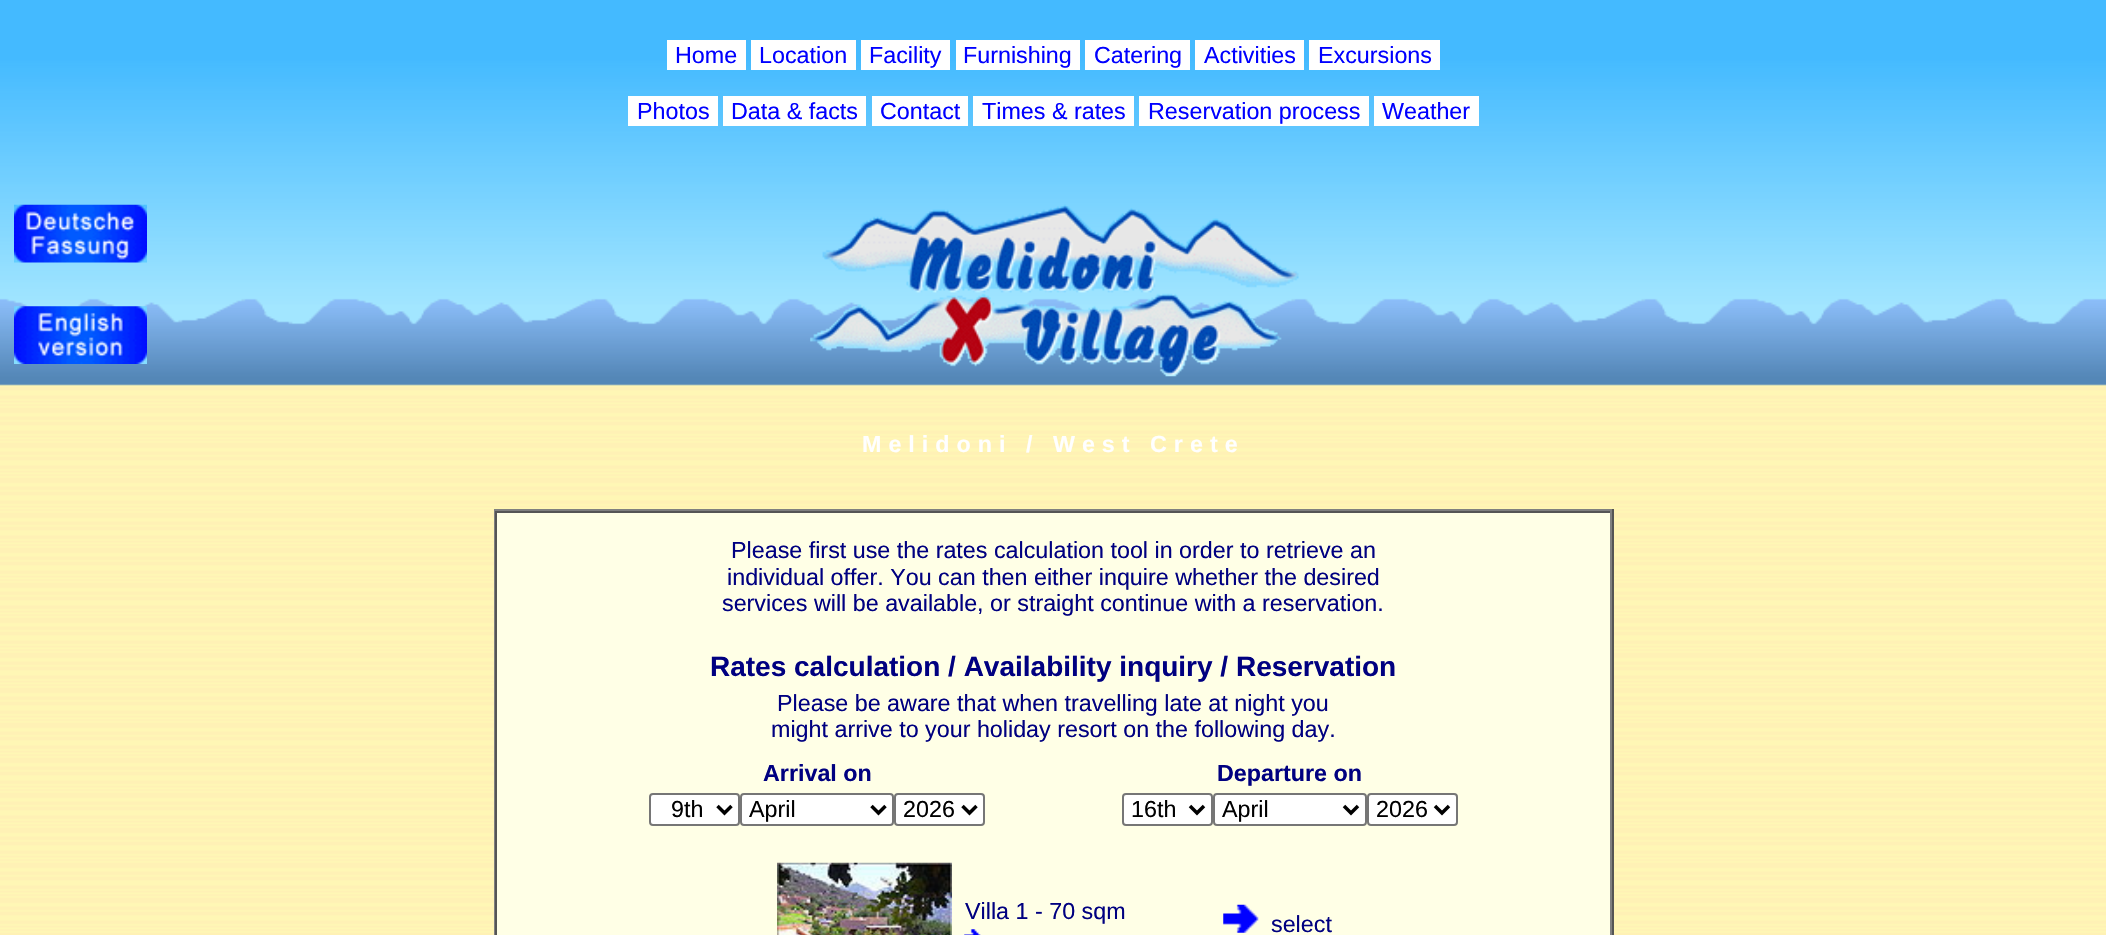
#include "include/core/SkBlurTypes.h"
#include "include/core/SkCanvas.h"
#include "include/core/SkData.h"
#include "include/core/SkFont.h"
#include "include/core/SkFontMgr.h"
#include "include/core/SkImage.h"
#include "include/core/SkMaskFilter.h"
#include "include/core/SkPaint.h"
#include "include/core/SkPathBuilder.h"
#include "include/core/SkTextBlob.h"
#include "include/effects/SkDashPathEffect.h"
#include "include/effects/SkGradientShader.h"
#include "include/utils/SkParsePath.h"

extern sk_sp<SkFontMgr> fontMgr;

static SkFont font(const char* family, int weight, float size, bool italic = false) {
    SkFontStyle style(weight, SkFontStyle::kNormal_Width,
        italic ? SkFontStyle::kItalic_Slant : SkFontStyle::kUpright_Slant);
    SkFont result(fontMgr->matchFamilyStyle(family, style), size);
    result.setSubpixel(true);
    return result;
}

static void drawLabel(SkCanvas* canvas, const char* s, float x, float y, const SkFont& font, SkColor color) {
    SkPaint ink(SkColor4f::FromColor(color));
    ink.setAntiAlias(true);
    canvas->drawString(s, x, y, font, ink);
}

static void drawTracked(SkCanvas* canvas, const char* s, float x, float y, const SkFont& font, const SkPaint& ink, float letter, float word) {
    std::vector<SkGlyphID> glyphs(font.countText(s, strlen(s), SkTextEncoding::kUTF8));
    std::vector<float> xs(glyphs.size());
    font.textToGlyphs(s, strlen(s), SkTextEncoding::kUTF8, glyphs);
    font.getXPos(glyphs, xs, x);
    float extra = 0;
    for (size_t i = 0; i < glyphs.size(); i++) {
        xs[i] += extra;
        extra += letter + word * (glyphs[i] == font.unicharToGlyph(' '));
    }
    canvas->drawTextBlob(SkTextBlob::MakeFromPosHGlyphs(glyphs, xs, y, font), 0, 0, ink);
}

static void fillRect(SkCanvas* canvas, float x, float y, float w, float h, SkColor color) {
    SkPaint ink(SkColor4f::FromColor(color));
    ink.setAntiAlias(true);
    canvas->drawRect(SkRect::MakeXYWH(x, y, w, h), ink);
}

static void drawPhoto(SkCanvas* canvas, const char* path, float x, float y, float w, float h) {
    auto image = SkImages::DeferredFromEncodedData(SkData::MakeFromFileName(path));
    canvas->drawImageRect(image, SkRect::MakeXYWH(x, y, w, h), SkSamplingOptions());
}

static SkPath parsePath(const char* data, bool evenOdd = false) {
    SkPath result = *SkParsePath::FromSVGString(data);
    if (evenOdd) result.setFillType(SkPathFillType::kEvenOdd);
    return result;
}

void draw(SkCanvas* canvas) {
    SkPaint paint;
    paint.setAntiAlias(true);
    canvas->clear(0xFFFFFFFF);
    drawPhoto(canvas, "assets/img1.png", 0, 0, 2106, 935);
    fillRect(canvas, 667, 40, 79, 30, 0xFFFFFFFF);
    SkFont font1 = font("Liberation Sans", 400, 23.3f);
    drawLabel(canvas, "Home", 675, 63, font1, 0xFF0000FF);
    fillRect(canvas, 751, 40, 105, 30, 0xFFFFFFFF);
    drawLabel(canvas, "Location", 759, 63, font1, 0xFF0000FF);
    fillRect(canvas, 861, 40, 89, 30, 0xFFFFFFFF);
    drawLabel(canvas, "Facility", 869, 63, font1, 0xFF0000FF);
    fillRect(canvas, 956, 40, 124, 30, 0xFFFFFFFF);
    drawLabel(canvas, "Furnishing", 963, 63, font1, 0xFF0000FF);
    fillRect(canvas, 1085, 40, 105, 30, 0xFFFFFFFF);
    drawLabel(canvas, "Catering", 1094, 63, font1, 0xFF0000FF);
    fillRect(canvas, 1195, 40, 109, 30, 0xFFFFFFFF);
    drawLabel(canvas, "Activities", 1204, 63, font1, 0xFF0000FF);
    fillRect(canvas, 1309, 40, 131, 30, 0xFFFFFFFF);
    drawLabel(canvas, "Excursions", 1318, 63, font1, 0xFF0000FF);
    fillRect(canvas, 628, 96, 90, 30, 0xFFFFFFFF);
    drawLabel(canvas, "Photos", 637, 119, font1, 0xFF0000FF);
    fillRect(canvas, 723, 96, 143, 30, 0xFFFFFFFF);
    drawLabel(canvas, "Data & facts", 731, 119, font1, 0xFF0000FF);
    fillRect(canvas, 872, 96, 96, 30, 0xFFFFFFFF);
    drawLabel(canvas, "Contact", 880, 119, font1, 0xFF0000FF);
    fillRect(canvas, 973, 96, 161, 30, 0xFFFFFFFF);
    drawLabel(canvas, "Times & rates", 982, 119, font1, 0xFF0000FF);
    fillRect(canvas, 1139, 96, 230, 30, 0xFFFFFFFF);
    drawLabel(canvas, "Reservation process", 1148, 119, font1, 0xFF0000FF);
    fillRect(canvas, 1374, 96, 105, 30, 0xFFFFFFFF);
    drawLabel(canvas, "Weather", 1382, 119, font1, 0xFF0000FF);
    drawPhoto(canvas, "assets/img2.png", 14, 204, 133, 59);
    drawPhoto(canvas, "assets/img3.png", 14, 306, 133, 58);
    drawPhoto(canvas, "assets/img4.png", 810, 204, 489, 173);
    SkFont font2 = font("Liberation Sans", 700, 23.3f);
    paint.setColor(0xFFFFFFFF);
    drawTracked(canvas, "Melidoni / West Crete", 862, 452, font2, paint, 7, 0);
    fillRect(canvas, 497, 513, 1113, 422, 0xFFFFFFE6);
    fillRect(canvas, 494, 509, 1120, 2, 0xFF808080);
    fillRect(canvas, 1612, 509, 2, 426, 0xFF555555);
    fillRect(canvas, 494, 509, 2, 426, 0xFF808080);
    fillRect(canvas, 495, 511, 1117, 2, 0xFF555555);
    fillRect(canvas, 1610, 511, 2, 424, 0xFF808080);
    fillRect(canvas, 495, 511, 2, 424, 0xFF555555);
    drawLabel(canvas, "Please first use the rates calculation tool in order to retrieve an", 731, 558, font1, 0xFF000080);
    drawLabel(canvas, "individual offer. You can then either inquire whether the desired", 727, 585, font1, 0xFF000080);
    drawLabel(canvas, "services will be available, or straight continue with a reservation.", 722, 611, font1, 0xFF000080);
    SkFont font3 = font("Liberation Sans", 700, 28);
    drawLabel(canvas, "Rates calculation / Availability inquiry / Reservation", 710, 676, font3, 0xFF000080);
    drawLabel(canvas, "Please be aware that when travelling late at night you", 777, 711, font1, 0xFF000080);
    drawLabel(canvas, "might arrive to your holiday resort on the following day.", 771, 737, font1, 0xFF000080);
    drawLabel(canvas, "Arrival on", 763, 781, font2, 0xFF000080);
    drawLabel(canvas, "Departure on", 1217, 781, font2, 0xFF000080);
    canvas->drawRoundRect(SkRect::MakeXYWH(650, 794, 89, 31), 3, 3, paint);
    paint.setStroke(true);
    paint.setStrokeWidth(2);
    paint.setColor(0xFF767676);
    canvas->drawRoundRect(SkRect::MakeXYWH(650, 794, 89, 31), 3, 3, paint);
    paint.setStrokeWidth(3.5f);
    paint.setColor(0xFF000000);
    canvas->drawPath(parsePath("M717.5 806L724.5 813L731.5 806"), paint);
    drawLabel(canvas, "9th", 671, 817, font1, 0xFF000000);
    paint.setStroke(false);
    paint.setColor(0xFFFFFFFF);
    canvas->drawRoundRect(SkRect::MakeXYWH(741, 794, 152, 31), 3, 3, paint);
    paint.setStroke(true);
    paint.setStrokeWidth(2);
    paint.setColor(0xFF767676);
    canvas->drawRoundRect(SkRect::MakeXYWH(741, 794, 152, 31), 3, 3, paint);
    paint.setStrokeWidth(3.5f);
    paint.setColor(0xFF000000);
    canvas->drawPath(parsePath("M871.5 806L878.5 813L885.5 806"), paint);
    drawLabel(canvas, "April", 749, 817, font1, 0xFF000000);
    paint.setStroke(false);
    paint.setColor(0xFFFFFFFF);
    canvas->drawRoundRect(SkRect::MakeXYWH(895, 794, 89, 31), 3, 3, paint);
    paint.setStroke(true);
    paint.setStrokeWidth(2);
    paint.setColor(0xFF767676);
    canvas->drawRoundRect(SkRect::MakeXYWH(895, 794, 89, 31), 3, 3, paint);
    paint.setStrokeWidth(3.5f);
    paint.setColor(0xFF000000);
    canvas->drawPath(parsePath("M962.5 806L969.5 813L976.5 806"), paint);
    drawLabel(canvas, "2026", 903, 817, font1, 0xFF000000);
    paint.setStroke(false);
    paint.setColor(0xFFFFFFFF);
    canvas->drawRoundRect(SkRect::MakeXYWH(1123, 794, 89, 31), 3, 3, paint);
    paint.setStroke(true);
    paint.setStrokeWidth(2);
    paint.setColor(0xFF767676);
    canvas->drawRoundRect(SkRect::MakeXYWH(1123, 794, 89, 31), 3, 3, paint);
    paint.setStrokeWidth(3.5f);
    paint.setColor(0xFF000000);
    canvas->drawPath(parsePath("M1190 806L1197 813L1204 806"), paint);
    drawLabel(canvas, "16th", 1131, 817, font1, 0xFF000000);
    paint.setStroke(false);
    paint.setColor(0xFFFFFFFF);
    canvas->drawRoundRect(SkRect::MakeXYWH(1214, 794, 152, 31), 3, 3, paint);
    paint.setStroke(true);
    paint.setStrokeWidth(2);
    paint.setColor(0xFF767676);
    canvas->drawRoundRect(SkRect::MakeXYWH(1214, 794, 152, 31), 3, 3, paint);
    paint.setStrokeWidth(3.5f);
    paint.setColor(0xFF000000);
    canvas->drawPath(parsePath("M1344 806L1351 813L1358 806"), paint);
    drawLabel(canvas, "April", 1222, 817, font1, 0xFF000000);
    paint.setStroke(false);
    paint.setColor(0xFFFFFFFF);
    canvas->drawRoundRect(SkRect::MakeXYWH(1368, 794, 89, 31), 3, 3, paint);
    paint.setStroke(true);
    paint.setStrokeWidth(2);
    paint.setColor(0xFF767676);
    canvas->drawRoundRect(SkRect::MakeXYWH(1368, 794, 89, 31), 3, 3, paint);
    paint.setStrokeWidth(3.5f);
    paint.setColor(0xFF000000);
    canvas->drawPath(parsePath("M1435 806L1442 813L1449 806"), paint);
    drawLabel(canvas, "2026", 1376, 817, font1, 0xFF000000);
    drawPhoto(canvas, "assets/img5.png", 777, 862, 175, 73);
    drawLabel(canvas, "Villa 1 - 70 sqm", 965, 919, font1, 0xFF000080);
    drawPhoto(canvas, "assets/img6.png", 964, 929, 17, 6);
    drawPhoto(canvas, "assets/img7.png", 1223, 904, 36, 29);
    drawLabel(canvas, "select", 1271, 932, font1, 0xFF000080);
}
